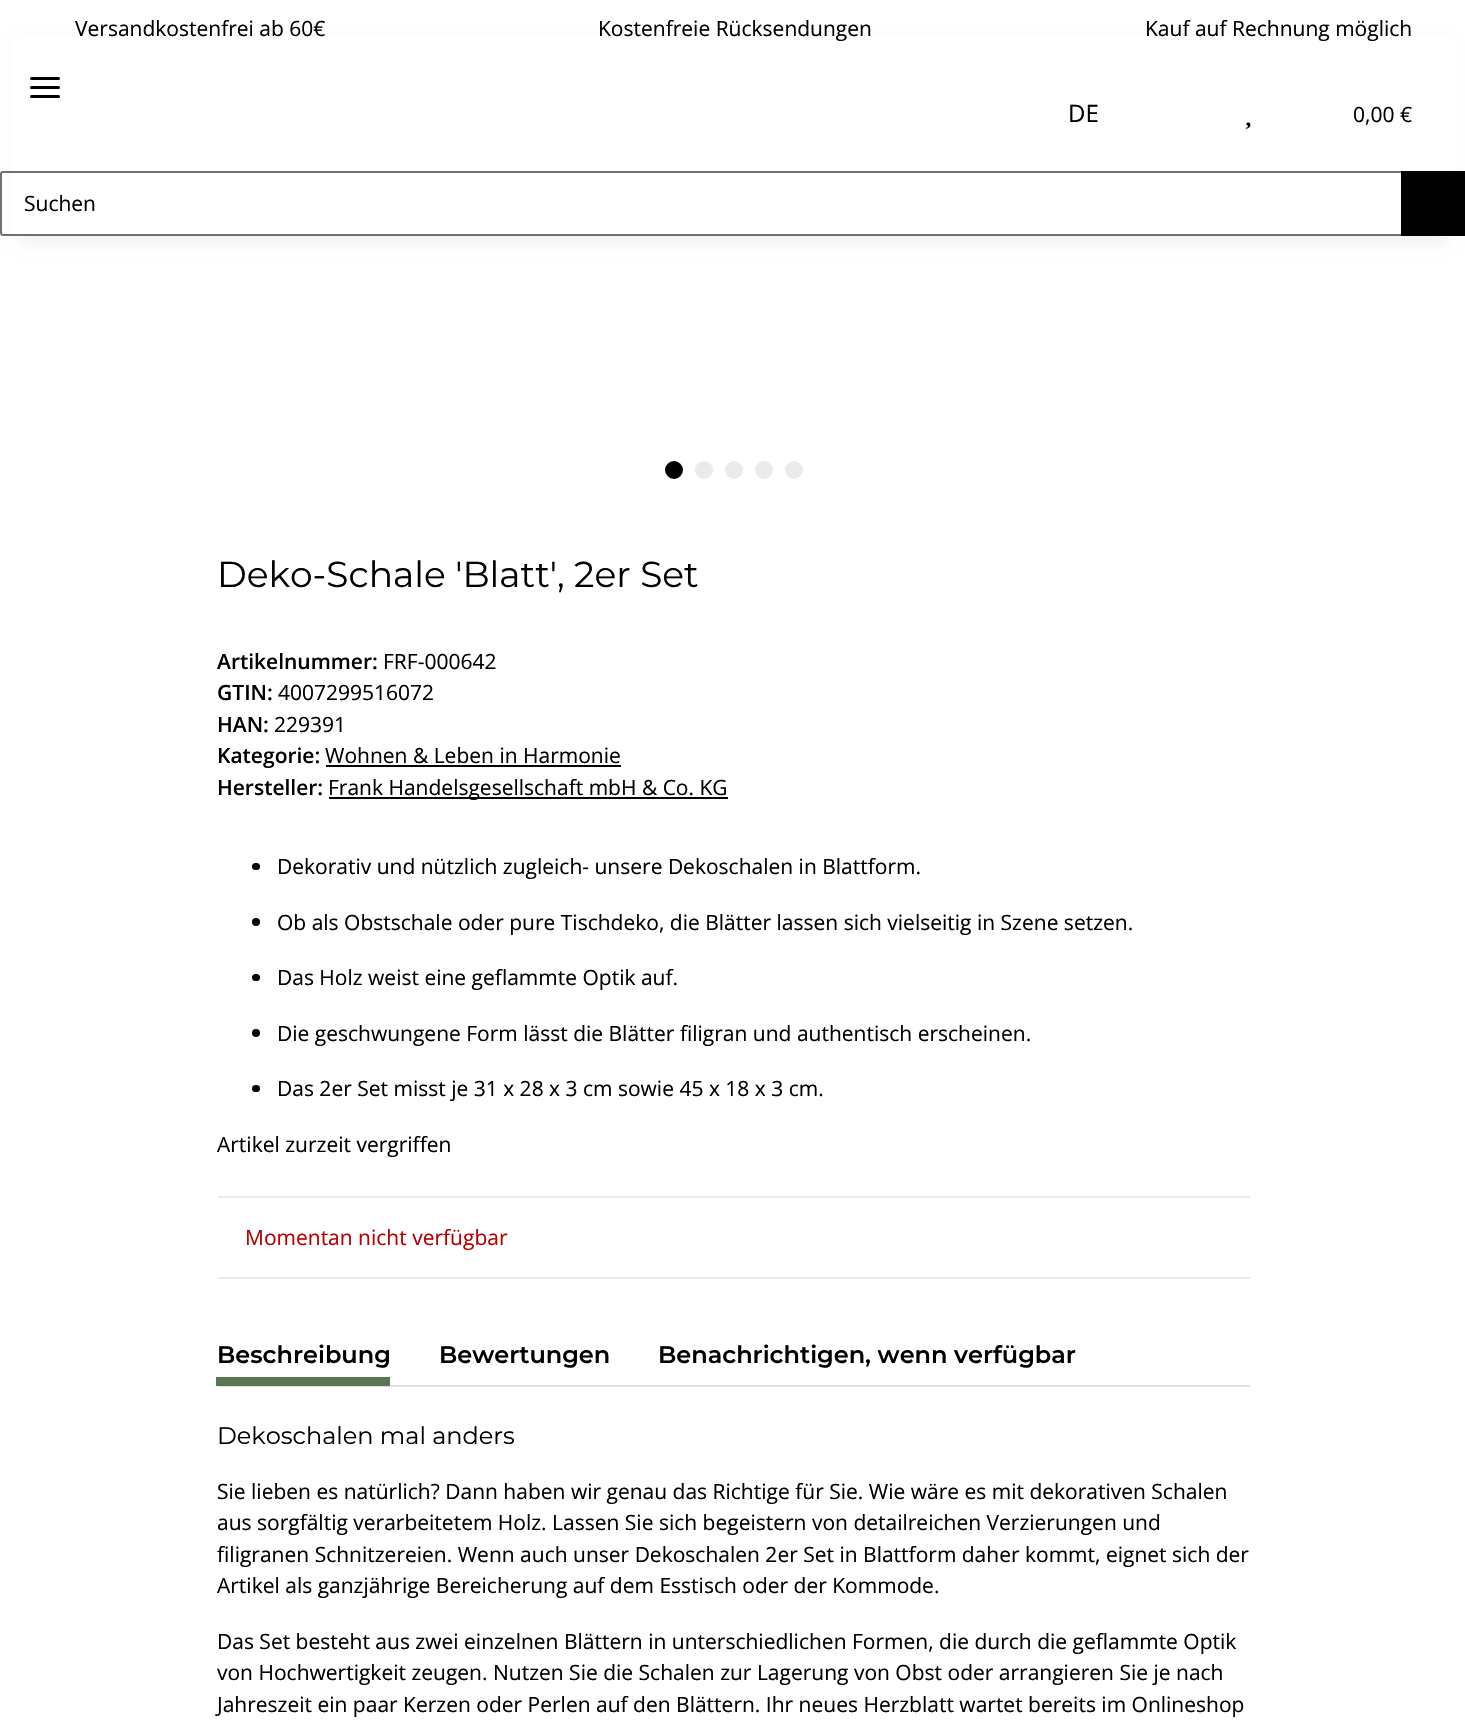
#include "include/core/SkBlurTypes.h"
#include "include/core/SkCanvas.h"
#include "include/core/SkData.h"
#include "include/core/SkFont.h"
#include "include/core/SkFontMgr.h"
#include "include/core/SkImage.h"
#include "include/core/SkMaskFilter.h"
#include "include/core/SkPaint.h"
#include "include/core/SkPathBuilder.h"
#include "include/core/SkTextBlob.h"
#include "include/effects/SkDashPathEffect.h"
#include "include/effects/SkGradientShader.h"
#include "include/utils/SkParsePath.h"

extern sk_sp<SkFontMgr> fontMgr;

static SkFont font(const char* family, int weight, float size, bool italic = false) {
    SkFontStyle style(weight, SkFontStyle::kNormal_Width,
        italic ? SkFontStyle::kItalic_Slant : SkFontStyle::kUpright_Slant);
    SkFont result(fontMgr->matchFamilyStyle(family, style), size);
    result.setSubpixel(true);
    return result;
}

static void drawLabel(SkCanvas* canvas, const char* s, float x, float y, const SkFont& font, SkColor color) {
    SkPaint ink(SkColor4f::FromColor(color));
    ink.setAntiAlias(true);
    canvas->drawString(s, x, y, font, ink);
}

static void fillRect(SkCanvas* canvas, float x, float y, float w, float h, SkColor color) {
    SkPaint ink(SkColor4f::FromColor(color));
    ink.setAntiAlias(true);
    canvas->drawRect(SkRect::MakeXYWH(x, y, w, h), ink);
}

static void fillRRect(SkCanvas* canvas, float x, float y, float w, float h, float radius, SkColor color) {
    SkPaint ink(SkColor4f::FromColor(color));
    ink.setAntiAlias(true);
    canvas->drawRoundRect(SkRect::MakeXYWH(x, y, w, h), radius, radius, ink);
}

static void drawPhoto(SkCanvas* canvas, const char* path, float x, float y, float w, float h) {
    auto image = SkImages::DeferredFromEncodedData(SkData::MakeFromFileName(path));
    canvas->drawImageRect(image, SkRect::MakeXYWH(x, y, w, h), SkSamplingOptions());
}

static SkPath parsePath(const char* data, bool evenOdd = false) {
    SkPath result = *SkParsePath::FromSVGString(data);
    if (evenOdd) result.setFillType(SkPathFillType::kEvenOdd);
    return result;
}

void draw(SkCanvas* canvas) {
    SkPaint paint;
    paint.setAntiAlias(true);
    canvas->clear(0xFFFFFFFF);
    paint.setColor(0x0F000000);
    paint.setMaskFilter(SkMaskFilter::MakeBlur(kNormal_SkBlurStyle, 7));
    canvas->drawRect(SkRect::MakeXYWH(18, 42, 1430, 200), paint);
    paint.setMaskFilter(nullptr);
    fillRect(canvas, 11, 35, 1444, 201, 0xFFFFFFFF);
    SkFont font1 = font("Open Sans", 400, 21);
    drawLabel(canvas, "Versandkostenfrei ab 60€", 75, 36, font1, 0xFF000000);
    drawLabel(canvas, "Kostenfreie Rücksendungen", 598, 36, font1, 0xFF000000);
    drawLabel(canvas, "Kauf auf Rechnung möglich", 1145, 36, font1, 0xFF000000);
    fillRRect(canvas, 30, 86, 30, 3, 1.5f, 0xFF000000);
    fillRRect(canvas, 30, 77, 30, 3, 1.5f, 0xFF000000);
    fillRRect(canvas, 30, 95, 30, 3, 1.5f, 0xFF000000);
    SkFont font2 = font("Open Sans", 400, 24);
    drawLabel(canvas, "DE", 1068, 122, font2, 0xFF000000);
    drawPhoto(canvas, "assets/img1.png", 1245, 122, 6, 7);
    drawLabel(canvas, "0,00 €", 1353, 122, font1, 0xFF000000);
    paint.setStroke(true);
    paint.setStrokeWidth(2);
    paint.setColor(0xFF707070);
    canvas->drawPath(parsePath("M3 172H1402V235H3C2 235 1 234 1 233V174C1 173 2 172 3 172Z"), paint);
    drawLabel(canvas, "Suchen", 24, 211, font1, 0xFF000000);
    fillRect(canvas, 1401, 171, 64, 65, 0xFF000000);
    paint.setStroke(false);
    paint.setColor(0xFF000000);
    canvas->drawCircle(674, 470, 7.5f, paint);
    paint.setStroke(true);
    paint.setStrokeWidth(3);
    canvas->drawCircle(674, 470, 7.5f, paint);
    paint.setStroke(false);
    paint.setColor(0xFFEBEBEB);
    canvas->drawCircle(704, 470, 7.5f, paint);
    paint.setStroke(true);
    canvas->drawCircle(704, 470, 7.5f, paint);
    paint.setStroke(false);
    canvas->drawCircle(734, 470, 7.5f, paint);
    paint.setStroke(true);
    canvas->drawCircle(734, 470, 7.5f, paint);
    paint.setStroke(false);
    canvas->drawCircle(764, 470, 7.5f, paint);
    paint.setStroke(true);
    canvas->drawCircle(764, 470, 7.5f, paint);
    paint.setStroke(false);
    canvas->drawCircle(794, 470, 7.5f, paint);
    paint.setStroke(true);
    canvas->drawCircle(794, 470, 7.5f, paint);
    SkFont font3 = font("Montserrat", 400, 36);
    drawLabel(canvas, "Deko-Schale 'Blatt', 2er Set", 217, 587, font3, 0xFF000000);
    SkFont font4 = font("Open Sans", 600, 21);
    drawLabel(canvas, "Artikelnummer:", 217, 669, font4, 0xFF000000);
    drawLabel(canvas, "FRF-000642", 383, 669, font1, 0xFF000000);
    drawLabel(canvas, "GTIN:", 217, 700, font4, 0xFF000000);
    drawLabel(canvas, "4007299516072", 278, 700, font1, 0xFF000000);
    drawLabel(canvas, "HAN:", 217, 732, font4, 0xFF000000);
    drawLabel(canvas, "229391", 274, 732, font1, 0xFF000000);
    drawLabel(canvas, "Kategorie:", 217, 763, font4, 0xFF000000);
    drawLabel(canvas, "Wohnen & Leben in Harmonie", 325, 763, font1, 0xFF000000);
    fillRect(canvas, 326, 765, 295, 2, 0xFF000000);
    drawLabel(canvas, "Hersteller:", 217, 795, font4, 0xFF000000);
    fillRect(canvas, 329, 797, 399, 2, 0xFF000000);
    drawLabel(canvas, "Frank Handelsgesellschaft mbH & Co. KG", 328, 795, font1, 0xFF000000);
    fillRRect(canvas, 252, 863, 8, 7, 3.5f, 0xFF000000);
    drawLabel(canvas, "Dekorativ und nützlich zugleich- unsere Dekoschalen in Blattform.", 277, 874, font1, 0xFF000000);
    paint.setStroke(false);
    paint.setColor(0xFF000000);
    canvas->drawCircle(256, 922, 4, paint);
    drawLabel(canvas, "Ob als Obstschale oder pure Tischdeko, die Blätter lassen sich vielseitig in Szene setzen.", 277, 930, font1, 0xFF000000);
    fillRRect(canvas, 252, 974, 8, 7, 3.5f, 0xFF000000);
    drawLabel(canvas, "Das Holz weist eine geflammte Optik auf.", 277, 985, font1, 0xFF000000);
    canvas->drawCircle(256, 1033, 4, paint);
    drawLabel(canvas, "Die geschwungene Form lässt die Blätter filigran und authentisch erscheinen.", 277, 1041, font1, 0xFF000000);
    fillRRect(canvas, 252, 1085, 8, 7, 3.5f, 0xFF000000);
    drawLabel(canvas, "Das 2er Set misst je 31 x 28 x 3 cm sowie 45 x 18 x 3 cm.", 277, 1096, font1, 0xFF000000);
    drawLabel(canvas, "Artikel zurzeit vergriffen", 217, 1152, font1, 0xFF000000);
    fillRect(canvas, 218, 1196, 1032, 2, 0xFFEBEBEB);
    fillRect(canvas, 218, 1277, 1032, 2, 0xFFEBEBEB);
    drawLabel(canvas, "Momentan nicht verfügbar", 245, 1245, font1, 0xFFB90000);
    fillRect(canvas, 218, 1385, 1032, 2, 0xFFDEE2E6);
    SkFont font5 = font("Montserrat", 600, 24);
    drawLabel(canvas, "Beschreibung", 217, 1363, font5, 0xFF000000);
    fillRect(canvas, 216, 1377, 174, 9, 0xFF597551);
    drawLabel(canvas, "Bewertungen", 439, 1363, font5, 0xFF000000);
    drawLabel(canvas, "Benachrichtigen, wenn verfügbar", 658, 1363, font5, 0xFF000000);
    SkFont font6 = font("Montserrat", 400, 24);
    drawLabel(canvas, "Dekoschalen mal anders", 217, 1444, font6, 0xFF000000);
    drawLabel(canvas, "Sie lieben es natürlich? Dann haben wir genau das Richtige für Sie. Wie wäre es mit dekorativen Schalen", 217, 1499, font1, 0xFF000000);
    drawLabel(canvas, "aus sorgfältig verarbeitetem Holz. Lassen Sie sich begeistern von detailreichen Verzierungen und", 217, 1530, font1, 0xFF000000);
    drawLabel(canvas, "filigranen Schnitzereien. Wenn auch unser Dekoschalen 2er Set in Blattform daher kommt, eignet sich der", 217, 1562, font1, 0xFF000000);
    drawLabel(canvas, "Artikel als ganzjährige Bereicherung auf dem Esstisch oder der Kommode.", 217, 1593, font1, 0xFF000000);
    drawLabel(canvas, "Das Set besteht aus zwei einzelnen Blättern in unterschiedlichen Formen, die durch die geflammte Optik", 217, 1649, font1, 0xFF000000);
    drawLabel(canvas, "von Hochwertigkeit zeugen. Nutzen Sie die Schalen zur Lagerung von Obst oder arrangieren Sie je nach", 217, 1680, font1, 0xFF000000);
    drawLabel(canvas, "Jahreszeit ein paar Kerzen oder Perlen auf den Blättern. Ihr neues Herzblatt wartet bereits im Onlineshop", 217, 1712, font1, 0xFF000000);
}
